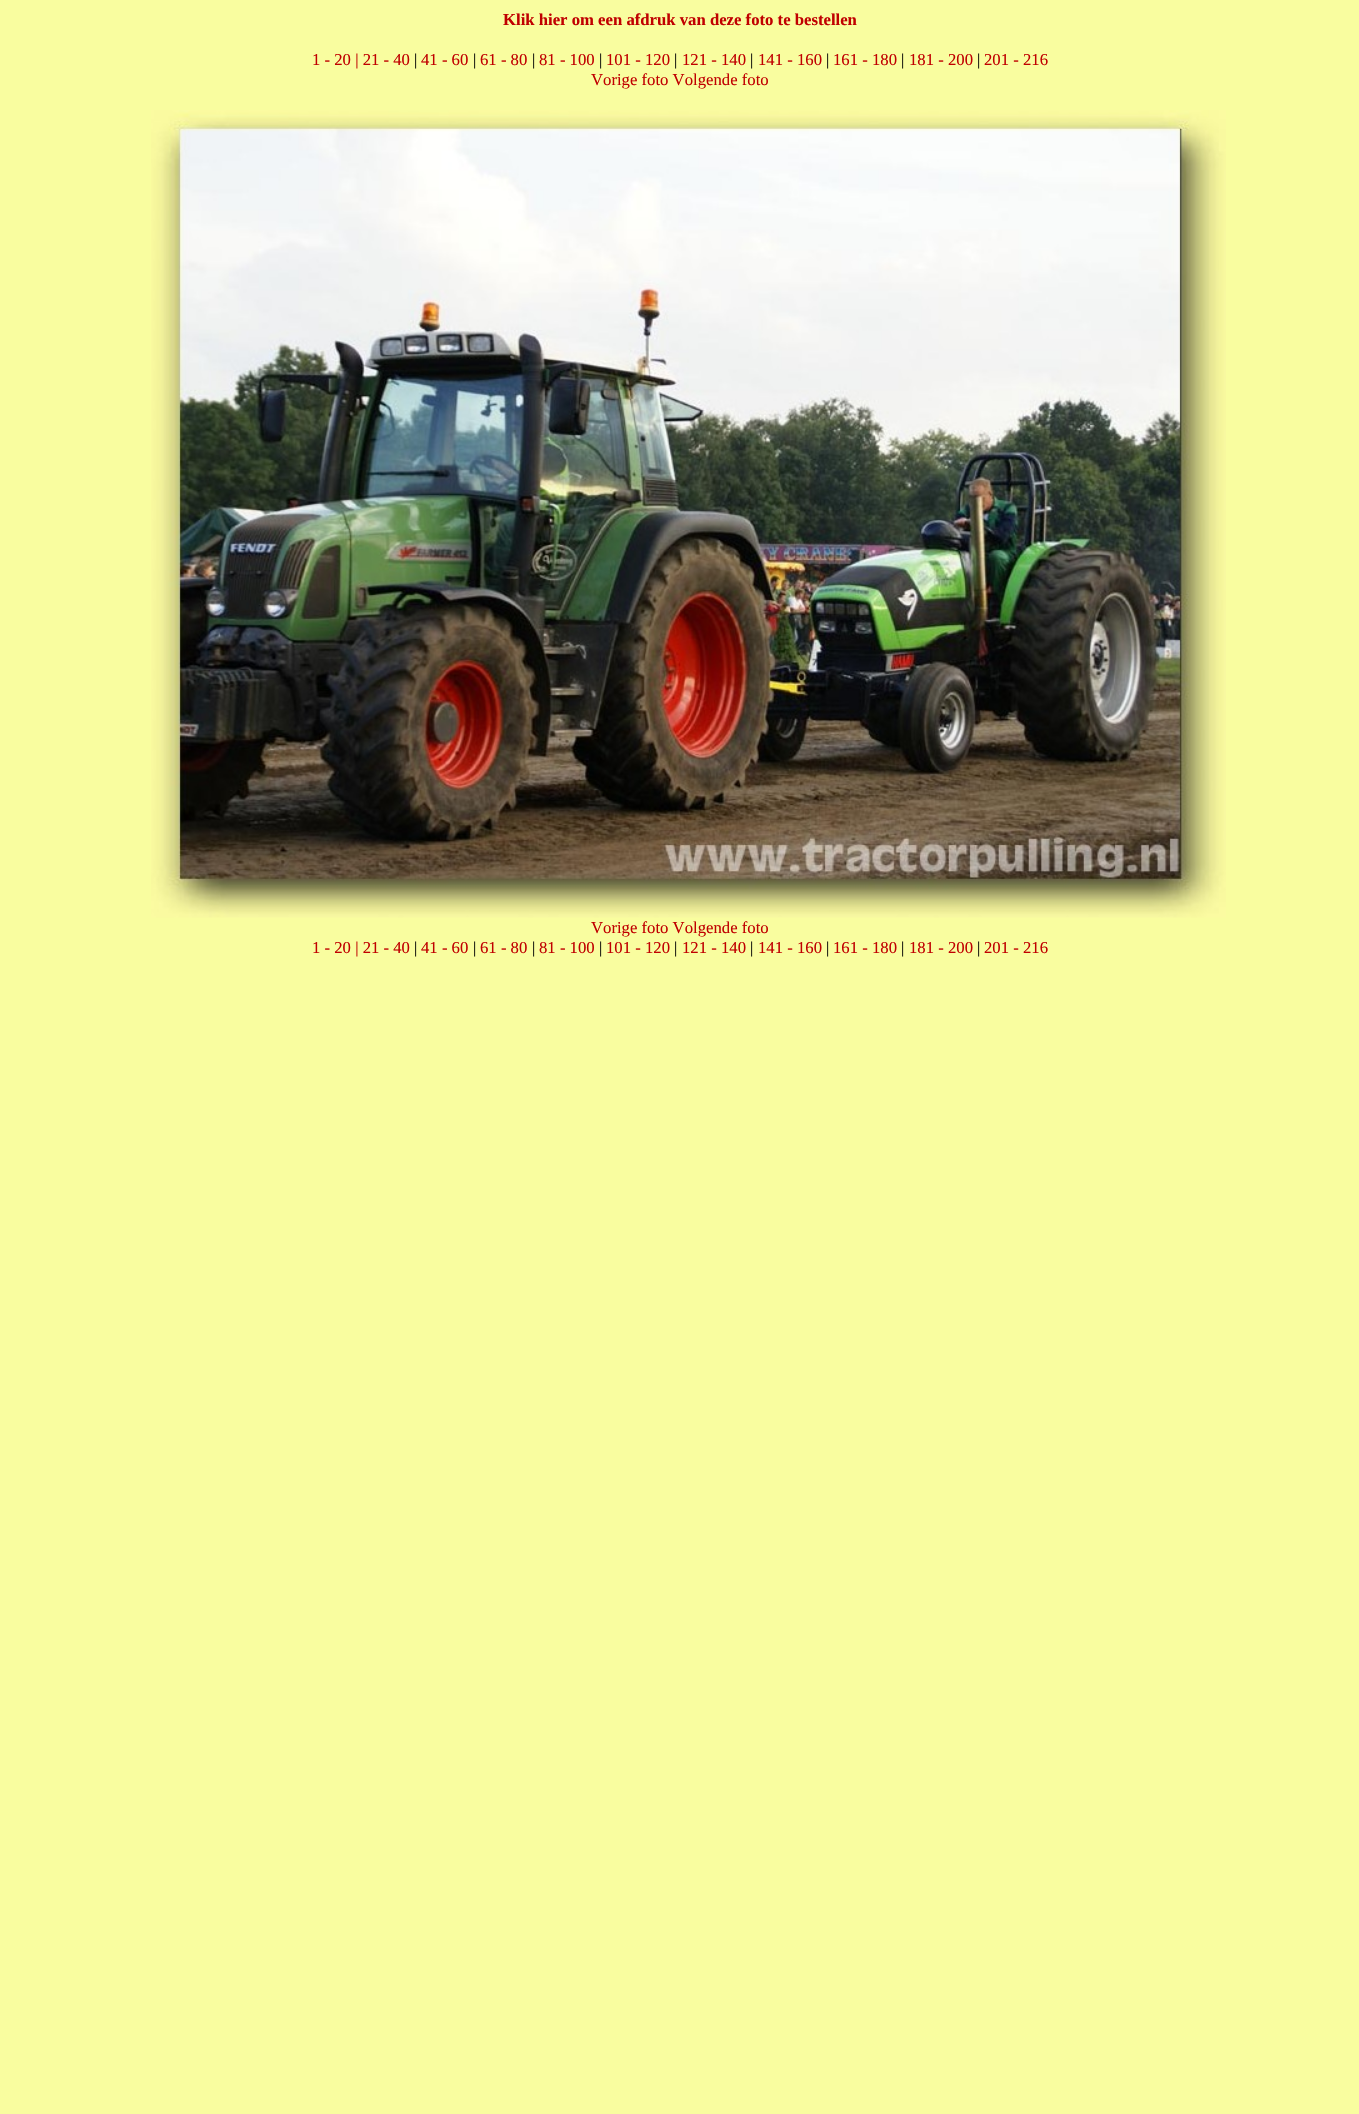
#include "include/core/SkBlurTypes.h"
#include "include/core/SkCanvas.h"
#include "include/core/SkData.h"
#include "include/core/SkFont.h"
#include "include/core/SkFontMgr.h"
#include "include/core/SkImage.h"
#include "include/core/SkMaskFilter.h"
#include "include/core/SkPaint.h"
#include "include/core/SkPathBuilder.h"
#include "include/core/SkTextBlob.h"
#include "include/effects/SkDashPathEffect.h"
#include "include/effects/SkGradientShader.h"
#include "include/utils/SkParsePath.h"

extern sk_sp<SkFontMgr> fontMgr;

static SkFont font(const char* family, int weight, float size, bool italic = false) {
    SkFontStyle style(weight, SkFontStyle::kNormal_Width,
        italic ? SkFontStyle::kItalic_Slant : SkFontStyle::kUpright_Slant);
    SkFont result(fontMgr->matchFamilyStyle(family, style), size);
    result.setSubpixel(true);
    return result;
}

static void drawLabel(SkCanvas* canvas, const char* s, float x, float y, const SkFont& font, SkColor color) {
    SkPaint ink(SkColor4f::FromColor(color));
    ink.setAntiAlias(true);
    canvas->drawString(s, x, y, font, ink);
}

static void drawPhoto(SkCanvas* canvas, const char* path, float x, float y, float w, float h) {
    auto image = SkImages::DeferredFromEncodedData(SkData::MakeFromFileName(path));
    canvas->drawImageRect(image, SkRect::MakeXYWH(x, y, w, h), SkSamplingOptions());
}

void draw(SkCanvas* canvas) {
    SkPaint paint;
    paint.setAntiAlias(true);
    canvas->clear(0xFFF9FD9F);
    SkFont font1 = font("Liberation Serif", 700, 16.7f);
    drawLabel(canvas, "Klik hier om een afdruk van deze foto te bestellen", 503, 25, font1, 0xFFC00000);
    SkFont font2 = font("Liberation Serif", 400, 16.7f);
    drawLabel(canvas, "1 - 20 | 21 - 40", 312, 65, font2, 0xFFC00000);
    drawLabel(canvas, "|", 414, 65, font2, 0xFF000000);
    drawLabel(canvas, "41 - 60", 421, 65, font2, 0xFFC00000);
    drawLabel(canvas, "|", 473, 65, font2, 0xFF000000);
    drawLabel(canvas, "61 - 80", 480, 65, font2, 0xFFC00000);
    drawLabel(canvas, "|", 532, 65, font2, 0xFF000000);
    drawLabel(canvas, "81 - 100", 539, 65, font2, 0xFFC00000);
    drawLabel(canvas, "|", 599, 65, font2, 0xFF000000);
    drawLabel(canvas, "101 - 120", 606, 65, font2, 0xFFC00000);
    drawLabel(canvas, "|", 674, 65, font2, 0xFF000000);
    drawLabel(canvas, "121 - 140", 682, 65, font2, 0xFFC00000);
    drawLabel(canvas, "|", 750, 65, font2, 0xFF000000);
    drawLabel(canvas, "141 - 160", 758, 65, font2, 0xFFC00000);
    drawLabel(canvas, "|", 826, 65, font2, 0xFF000000);
    drawLabel(canvas, "161 - 180", 833, 65, font2, 0xFFC00000);
    drawLabel(canvas, "|", 901, 65, font2, 0xFF000000);
    drawLabel(canvas, "181 - 200", 909, 65, font2, 0xFFC00000);
    drawLabel(canvas, "|", 977, 65, font2, 0xFF000000);
    drawLabel(canvas, "201 - 216", 984, 65, font2, 0xFFC00000);
    drawLabel(canvas, "Vorige foto Volgende foto", 591, 85, font2, 0xFFC00000);
    drawPhoto(canvas, "assets/img1.png", 151, 110, 1075, 808);
    drawLabel(canvas, "Vorige foto Volgende foto", 591, 933, font2, 0xFFC00000);
    drawLabel(canvas, "1 - 20 | 21 - 40", 312, 953, font2, 0xFFC00000);
    drawLabel(canvas, "|", 414, 953, font2, 0xFF000000);
    drawLabel(canvas, "41 - 60", 421, 953, font2, 0xFFC00000);
    drawLabel(canvas, "|", 473, 953, font2, 0xFF000000);
    drawLabel(canvas, "61 - 80", 480, 953, font2, 0xFFC00000);
    drawLabel(canvas, "|", 532, 953, font2, 0xFF000000);
    drawLabel(canvas, "81 - 100", 539, 953, font2, 0xFFC00000);
    drawLabel(canvas, "|", 599, 953, font2, 0xFF000000);
    drawLabel(canvas, "101 - 120", 606, 953, font2, 0xFFC00000);
    drawLabel(canvas, "|", 674, 953, font2, 0xFF000000);
    drawLabel(canvas, "121 - 140", 682, 953, font2, 0xFFC00000);
    drawLabel(canvas, "|", 750, 953, font2, 0xFF000000);
    drawLabel(canvas, "141 - 160", 758, 953, font2, 0xFFC00000);
    drawLabel(canvas, "|", 826, 953, font2, 0xFF000000);
    drawLabel(canvas, "161 - 180", 833, 953, font2, 0xFFC00000);
    drawLabel(canvas, "|", 901, 953, font2, 0xFF000000);
    drawLabel(canvas, "181 - 200", 909, 953, font2, 0xFFC00000);
    drawLabel(canvas, "|", 977, 953, font2, 0xFF000000);
    drawLabel(canvas, "201 - 216", 984, 953, font2, 0xFFC00000);
}
